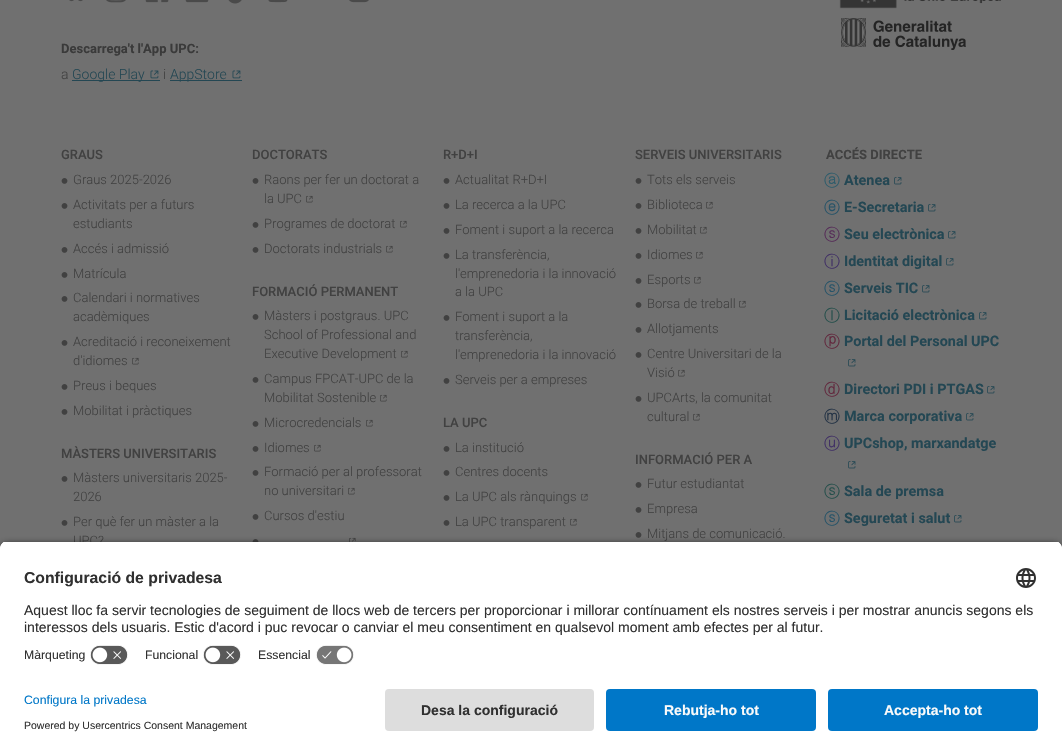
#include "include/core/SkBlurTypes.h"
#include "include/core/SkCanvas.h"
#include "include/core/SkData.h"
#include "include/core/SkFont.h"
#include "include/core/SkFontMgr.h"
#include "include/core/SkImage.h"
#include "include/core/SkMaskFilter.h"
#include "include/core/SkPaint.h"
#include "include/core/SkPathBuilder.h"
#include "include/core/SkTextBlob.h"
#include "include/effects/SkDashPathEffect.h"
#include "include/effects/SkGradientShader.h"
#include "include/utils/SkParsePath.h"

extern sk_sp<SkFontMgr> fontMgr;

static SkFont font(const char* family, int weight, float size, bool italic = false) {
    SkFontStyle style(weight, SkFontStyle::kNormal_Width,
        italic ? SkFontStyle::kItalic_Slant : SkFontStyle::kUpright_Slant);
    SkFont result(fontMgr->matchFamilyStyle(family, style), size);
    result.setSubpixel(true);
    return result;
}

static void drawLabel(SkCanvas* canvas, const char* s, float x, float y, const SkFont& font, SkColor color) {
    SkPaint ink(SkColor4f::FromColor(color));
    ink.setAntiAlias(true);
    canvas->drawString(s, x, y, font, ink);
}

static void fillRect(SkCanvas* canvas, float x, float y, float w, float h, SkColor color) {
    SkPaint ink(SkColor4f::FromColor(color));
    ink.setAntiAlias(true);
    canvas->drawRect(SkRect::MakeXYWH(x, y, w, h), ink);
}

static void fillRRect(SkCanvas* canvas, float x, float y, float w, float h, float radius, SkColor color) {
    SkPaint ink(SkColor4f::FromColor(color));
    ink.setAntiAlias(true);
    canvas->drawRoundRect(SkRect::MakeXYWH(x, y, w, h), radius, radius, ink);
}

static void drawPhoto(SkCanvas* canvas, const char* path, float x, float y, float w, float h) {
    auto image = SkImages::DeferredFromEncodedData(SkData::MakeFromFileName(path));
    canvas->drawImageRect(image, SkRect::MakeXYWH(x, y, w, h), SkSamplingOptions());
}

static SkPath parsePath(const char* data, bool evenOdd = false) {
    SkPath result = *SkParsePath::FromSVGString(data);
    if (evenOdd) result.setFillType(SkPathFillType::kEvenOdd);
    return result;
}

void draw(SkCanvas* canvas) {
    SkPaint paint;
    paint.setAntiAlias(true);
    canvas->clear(0xFF707070);
    drawPhoto(canvas, "assets/img1.png", 839, 0, 162, 9);
    drawPhoto(canvas, "assets/img2.png", 841, 18, 125, 32);
    drawPhoto(canvas, "assets/img3.png", 69, 0, 14, 2);
    drawPhoto(canvas, "assets/img4.png", 106, 0, 20, 3);
    drawPhoto(canvas, "assets/img5.png", 145, 0, 24, 3);
    drawPhoto(canvas, "assets/img6.png", 185, 0, 24, 3);
    drawPhoto(canvas, "assets/img7.png", 228, 0, 14, 4);
    drawPhoto(canvas, "assets/img8.png", 268, 0, 20, 3);
    drawPhoto(canvas, "assets/img9.png", 349, 0, 20, 3);
    SkFont font1 = font("Roboto", 700, 13);
    drawLabel(canvas, "Descarrega't l'App UPC:", 61, 53, font1, 0xFF3A3A3A);
    SkFont font2 = font("Roboto", 300, 14);
    drawLabel(canvas, "a", 61, 79, font2, 0xFF414141);
    fillRect(canvas, 72, 80, 88, 1, 0xFF244753);
    drawLabel(canvas, "Google Play", 72, 79, font2, 0xFF244753);
    drawPhoto(canvas, "assets/img10.png", 150, 70, 9, 9);
    drawLabel(canvas, "i", 163, 79, font2, 0xFF414141);
    fillRect(canvas, 170, 80, 72, 1, 0xFF244753);
    drawLabel(canvas, "AppStore", 170, 79, font2, 0xFF244753);
    drawPhoto(canvas, "assets/img10.png", 232, 70, 9, 9);
    SkFont font3 = font("Roboto", 500, 13);
    drawLabel(canvas, "GRAUS", 61, 159, font3, 0xFF414141);
    drawPhoto(canvas, "assets/img11.png", 61, 178, 7, 6);
    SkFont font4 = font("Roboto", 300, 13);
    drawLabel(canvas, "Graus 2025-2026", 73, 184, font4, 0xFF414141);
    drawPhoto(canvas, "assets/img11.png", 61, 203, 7, 6);
    drawLabel(canvas, "Activitats per a futurs", 73, 209, font4, 0xFF414141);
    drawLabel(canvas, "estudiants", 73, 228, font4, 0xFF414141);
    drawPhoto(canvas, "assets/img11.png", 61, 247, 7, 6);
    drawLabel(canvas, "Accés i admissió", 73, 253, font4, 0xFF414141);
    drawPhoto(canvas, "assets/img11.png", 61, 272, 7, 6);
    drawLabel(canvas, "Matrícula", 73, 278, font4, 0xFF414141);
    drawPhoto(canvas, "assets/img11.png", 61, 296, 7, 6);
    drawLabel(canvas, "Calendari i normatives", 73, 302, font4, 0xFF414141);
    drawLabel(canvas, "acadèmiques", 73, 321, font4, 0xFF414141);
    drawPhoto(canvas, "assets/img11.png", 61, 340, 7, 6);
    drawLabel(canvas, "Acreditació i reconeixement", 73, 346, font4, 0xFF414141);
    drawLabel(canvas, "d'idiomes", 73, 365, font4, 0xFF414141);
    drawPhoto(canvas, "assets/img12.png", 132, 357, 7, 8);
    drawPhoto(canvas, "assets/img11.png", 61, 384, 7, 6);
    drawLabel(canvas, "Preus i beques", 73, 390, font4, 0xFF414141);
    drawPhoto(canvas, "assets/img11.png", 61, 409, 7, 6);
    drawLabel(canvas, "Mobilitat i pràctiques", 73, 415, font4, 0xFF414141);
    drawLabel(canvas, "DOCTORATS", 252, 159, font3, 0xFF414141);
    drawPhoto(canvas, "assets/img11.png", 252, 178, 7, 6);
    drawLabel(canvas, "Raons per fer un doctorat a", 264, 184, font4, 0xFF414141);
    drawLabel(canvas, "la UPC", 264, 203, font4, 0xFF414141);
    drawPhoto(canvas, "assets/img12.png", 306, 195, 7, 8);
    drawPhoto(canvas, "assets/img11.png", 252, 222, 7, 6);
    drawLabel(canvas, "Programes de doctorat", 264, 228, font4, 0xFF414141);
    drawPhoto(canvas, "assets/img12.png", 400, 220, 7, 8);
    drawPhoto(canvas, "assets/img11.png", 252, 247, 7, 6);
    drawLabel(canvas, "Doctorats industrials", 264, 253, font4, 0xFF414141);
    drawPhoto(canvas, "assets/img12.png", 386, 245, 7, 8);
    drawLabel(canvas, "R+D+I", 443, 159, font3, 0xFF414141);
    drawPhoto(canvas, "assets/img11.png", 443, 178, 7, 6);
    drawLabel(canvas, "Actualitat R+D+I", 455, 184, font4, 0xFF414141);
    drawPhoto(canvas, "assets/img11.png", 443, 203, 7, 6);
    drawLabel(canvas, "La recerca a la UPC", 455, 209, font4, 0xFF414141);
    drawPhoto(canvas, "assets/img11.png", 443, 228, 7, 6);
    drawLabel(canvas, "Foment i suport a la recerca", 455, 234, font4, 0xFF414141);
    drawPhoto(canvas, "assets/img11.png", 443, 253, 7, 6);
    drawLabel(canvas, "La transferència,", 455, 259, font4, 0xFF414141);
    drawLabel(canvas, "l'emprenedoria i la innovació", 455, 278, font4, 0xFF414141);
    drawLabel(canvas, "a la UPC", 455, 296, font4, 0xFF414141);
    drawPhoto(canvas, "assets/img11.png", 443, 315, 7, 6);
    drawLabel(canvas, "Foment i suport a la", 455, 321, font4, 0xFF414141);
    drawLabel(canvas, "transferència,", 455, 340, font4, 0xFF414141);
    drawLabel(canvas, "l'emprenedoria i la innovació", 455, 359, font4, 0xFF414141);
    drawPhoto(canvas, "assets/img11.png", 443, 378, 7, 6);
    drawLabel(canvas, "Serveis per a empreses", 455, 384, font4, 0xFF414141);
    drawLabel(canvas, "SERVEIS UNIVERSITARIS", 635, 159, font3, 0xFF414141);
    drawPhoto(canvas, "assets/img11.png", 635, 178, 7, 6);
    drawLabel(canvas, "Tots els serveis", 647, 184, font4, 0xFF414141);
    drawPhoto(canvas, "assets/img11.png", 635, 203, 7, 6);
    drawLabel(canvas, "Biblioteca", 647, 209, font4, 0xFF414141);
    drawPhoto(canvas, "assets/img12.png", 706, 201, 7, 8);
    drawPhoto(canvas, "assets/img11.png", 635, 228, 7, 6);
    drawLabel(canvas, "Mobilitat", 647, 234, font4, 0xFF414141);
    drawPhoto(canvas, "assets/img12.png", 700, 226, 7, 8);
    drawPhoto(canvas, "assets/img11.png", 635, 253, 7, 6);
    drawLabel(canvas, "Idiomes", 647, 259, font4, 0xFF414141);
    drawPhoto(canvas, "assets/img12.png", 696, 251, 7, 8);
    drawPhoto(canvas, "assets/img11.png", 635, 278, 7, 6);
    drawLabel(canvas, "Esports", 647, 284, font4, 0xFF414141);
    drawPhoto(canvas, "assets/img12.png", 694, 276, 7, 8);
    drawPhoto(canvas, "assets/img11.png", 635, 302, 7, 6);
    drawLabel(canvas, "Borsa de treball", 647, 308, font4, 0xFF414141);
    drawPhoto(canvas, "assets/img12.png", 739, 300, 7, 8);
    drawPhoto(canvas, "assets/img11.png", 635, 327, 7, 6);
    drawLabel(canvas, "Allotjaments", 647, 333, font4, 0xFF414141);
    drawPhoto(canvas, "assets/img11.png", 635, 352, 7, 6);
    drawLabel(canvas, "Centre Universitari de la", 647, 358, font4, 0xFF414141);
    drawLabel(canvas, "Visió", 647, 377, font4, 0xFF414141);
    drawPhoto(canvas, "assets/img12.png", 678, 369, 7, 8);
    drawPhoto(canvas, "assets/img11.png", 635, 396, 7, 6);
    drawLabel(canvas, "UPCArts, la comunitat", 647, 402, font4, 0xFF414141);
    drawLabel(canvas, "cultural", 647, 421, font4, 0xFF414141);
    drawPhoto(canvas, "assets/img12.png", 693, 413, 7, 8);
    drawLabel(canvas, "ACCÉS DIRECTE", 826, 159, font1, 0xFF414141);
    SkFont font5 = font("WenQuanYi Zen Hei", 500, 16);
    drawLabel(canvas, "ⓐ", 824, 186, font5, 0xFF2D5C6B);
    SkFont font6 = font("Roboto", 700, 14.4f);
    drawLabel(canvas, "Atenea", 844, 185, font6, 0xFF244753);
    drawPhoto(canvas, "assets/img13.png", 894, 177, 8, 8);
    drawLabel(canvas, "ⓔ", 824, 213, font5, 0xFF265368);
    drawLabel(canvas, "E-Secretaria", 844, 212, font6, 0xFF244753);
    drawPhoto(canvas, "assets/img13.png", 928, 204, 8, 8);
    drawLabel(canvas, "ⓢ", 824, 240, font5, 0xFF562D58);
    drawLabel(canvas, "Seu electrònica", 844, 239, font6, 0xFF244753);
    drawPhoto(canvas, "assets/img13.png", 948, 231, 8, 8);
    drawLabel(canvas, "ⓘ", 824, 267, font5, 0xFF413065);
    drawLabel(canvas, "Identitat digital", 844, 266, font6, 0xFF244753);
    drawPhoto(canvas, "assets/img13.png", 946, 258, 8, 8);
    drawLabel(canvas, "ⓢ", 824, 294, font5, 0xFF265368);
    drawLabel(canvas, "Serveis TIC", 844, 293, font6, 0xFF244753);
    drawPhoto(canvas, "assets/img13.png", 922, 285, 8, 8);
    drawLabel(canvas, "ⓛ", 824, 321, font5, 0xFF254F4B);
    drawLabel(canvas, "Licitació electrònica", 844, 320, font6, 0xFF244753);
    drawPhoto(canvas, "assets/img13.png", 979, 312, 8, 8);
    drawLabel(canvas, "ⓟ", 824, 347, font5, 0xFF62293E);
    drawLabel(canvas, "Portal del Personal UPC", 844, 346, font6, 0xFF244753);
    drawPhoto(canvas, "assets/img13.png", 848, 359, 8, 8);
    drawLabel(canvas, "ⓓ", 824, 395, font5, 0xFF62293E);
    drawLabel(canvas, "Directori PDI i PTGAS", 844, 394, font6, 0xFF244753);
    drawPhoto(canvas, "assets/img13.png", 987, 386, 8, 8);
    drawLabel(canvas, "ⓜ", 824, 422, font5, 0xFF243345);
    drawLabel(canvas, "Marca corporativa", 844, 421, font6, 0xFF244753);
    drawPhoto(canvas, "assets/img13.png", 966, 413, 8, 8);
    drawLabel(canvas, "ⓤ", 824, 449, font5, 0xFF413065);
    drawLabel(canvas, "UPCshop, marxandatge", 844, 448, font6, 0xFF244753);
    drawPhoto(canvas, "assets/img13.png", 848, 461, 8, 8);
    drawLabel(canvas, "ⓢ", 824, 497, font5, 0xFF254F4B);
    drawLabel(canvas, "Sala de premsa", 844, 496, font6, 0xFF244753);
    drawLabel(canvas, "ⓢ", 824, 524, font5, 0xFF265368);
    drawLabel(canvas, "Seguretat i salut", 844, 523, font6, 0xFF244753);
    drawPhoto(canvas, "assets/img13.png", 954, 515, 8, 8);
    drawLabel(canvas, "MÀSTERS UNIVERSITARIS", 61, 458, font3, 0xFF414141);
    drawPhoto(canvas, "assets/img11.png", 61, 476, 7, 6);
    drawLabel(canvas, "Màsters universitaris 2025-", 73, 482, font4, 0xFF414141);
    drawLabel(canvas, "2026", 73, 501, font4, 0xFF414141);
    drawPhoto(canvas, "assets/img11.png", 61, 520, 7, 6);
    drawLabel(canvas, "Per què fer un màster a la", 73, 526, font4, 0xFF414141);
    drawLabel(canvas, "UPC?", 73, 545, font4, 0xFF414141);
    drawLabel(canvas, "FORMACIÓ PERMANENT", 252, 296, font3, 0xFF414141);
    drawPhoto(canvas, "assets/img11.png", 252, 314, 7, 6);
    drawLabel(canvas, "Màsters i postgraus. UPC", 264, 320, font4, 0xFF414141);
    drawLabel(canvas, "School of Professional and", 264, 339, font4, 0xFF414141);
    drawLabel(canvas, "Executive Development", 264, 358, font4, 0xFF414141);
    drawPhoto(canvas, "assets/img12.png", 401, 350, 7, 8);
    drawPhoto(canvas, "assets/img11.png", 252, 377, 7, 6);
    drawLabel(canvas, "Campus FPCAT-UPC de la", 264, 383, font4, 0xFF414141);
    drawLabel(canvas, "Mobilitat Sostenible", 264, 402, font4, 0xFF414141);
    drawPhoto(canvas, "assets/img12.png", 380, 394, 7, 8);
    drawPhoto(canvas, "assets/img11.png", 252, 421, 7, 6);
    drawLabel(canvas, "Microcredencials", 264, 427, font4, 0xFF414141);
    drawPhoto(canvas, "assets/img12.png", 366, 419, 7, 8);
    drawPhoto(canvas, "assets/img11.png", 252, 446, 7, 6);
    drawLabel(canvas, "Idiomes", 264, 452, font4, 0xFF414141);
    drawPhoto(canvas, "assets/img12.png", 314, 444, 7, 8);
    drawPhoto(canvas, "assets/img11.png", 252, 470, 7, 6);
    drawLabel(canvas, "Formació per al professorat", 264, 476, font4, 0xFF414141);
    drawLabel(canvas, "no universitari", 264, 495, font4, 0xFF414141);
    drawPhoto(canvas, "assets/img12.png", 348, 487, 7, 8);
    drawPhoto(canvas, "assets/img11.png", 252, 514, 7, 6);
    drawLabel(canvas, "Cursos d'estiu", 264, 520, font4, 0xFF414141);
    drawPhoto(canvas, "assets/img14.png", 252, 539, 7, 3);
    drawPhoto(canvas, "assets/img15.png", 349, 537, 7, 5);
    drawLabel(canvas, "LA UPC", 443, 427, font3, 0xFF414141);
    drawPhoto(canvas, "assets/img11.png", 443, 446, 7, 6);
    drawLabel(canvas, "La institució", 455, 452, font4, 0xFF414141);
    drawPhoto(canvas, "assets/img11.png", 443, 470, 7, 6);
    drawLabel(canvas, "Centres docents", 455, 476, font4, 0xFF414141);
    drawPhoto(canvas, "assets/img11.png", 443, 495, 7, 6);
    drawLabel(canvas, "La UPC als rànquings", 455, 501, font4, 0xFF414141);
    drawPhoto(canvas, "assets/img12.png", 581, 493, 7, 8);
    drawPhoto(canvas, "assets/img11.png", 443, 520, 7, 6);
    drawLabel(canvas, "La UPC transparent", 455, 526, font4, 0xFF414141);
    drawPhoto(canvas, "assets/img12.png", 570, 518, 7, 8);
    drawLabel(canvas, "INFORMACIÓ PER A", 635, 464, font3, 0xFF414141);
    drawPhoto(canvas, "assets/img11.png", 635, 482, 7, 6);
    drawLabel(canvas, "Futur estudiantat", 647, 488, font4, 0xFF414141);
    drawPhoto(canvas, "assets/img11.png", 635, 507, 7, 6);
    drawLabel(canvas, "Empresa", 647, 513, font4, 0xFF414141);
    drawPhoto(canvas, "assets/img11.png", 635, 532, 7, 6);
    drawLabel(canvas, "Mitjans de comunicació.", 647, 538, font4, 0xFF414141);
    paint.setColor(0xCC000000);
    paint.setMaskFilter(SkMaskFilter::MakeBlur(kNormal_SkBlurStyle, 3.5f));
    canvas->drawRoundRect(SkRect::MakeXYWH(0, 544, 1062, 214), 8, 8, paint);
    paint.setMaskFilter(nullptr);
    canvas->save();
    canvas->clipPath(parsePath("M8 541H1054C1058.5 541 1062 544.5 1062 549V681H0V549C0 544.5 3.5 541 8 541Z"), true);
    fillRect(canvas, 0, 542, 1062, 139, 0xFFFFFFFF);
    fillRect(canvas, 0, 542, 1062, 99, 0xFFFFFFFF);
    canvas->restore();
    SkFont font7 = font("Liberation Sans", 700, 15.75f);
    drawLabel(canvas, "Configuració de privadesa", 24, 583, font7, 0xFF303030);
    drawPhoto(canvas, "assets/img16.png", 1016, 568, 20, 20);
    SkFont font8 = font("Liberation Sans", 400, 14);
    drawLabel(canvas, "Aquest lloc fa servir tecnologies de seguiment de llocs web de tercers per proporcionar i millorar contínuament els nostres serveis i per mostrar anuncis segons els", 24, 615, font8, 0xFF303030);
    drawLabel(canvas, "interessos dels usuaris. Estic d'acord i puc revocar o canviar el meu consentiment en qualsevol moment amb efectes per al futur.", 24, 632, font8, 0xFF303030);
    SkFont font9 = font("Liberation Sans", 400, 12.25f);
    drawLabel(canvas, "Màrqueting", 24, 659, font9, 0xFF303030);
    drawPhoto(canvas, "assets/img17.png", 90, 645, 38, 20);
    drawLabel(canvas, "Funcional", 145, 659, font9, 0xFF303030);
    drawPhoto(canvas, "assets/img17.png", 203, 645, 38, 20);
    drawLabel(canvas, "Essencial", 258, 659, font9, 0xFF303030);
    drawPhoto(canvas, "assets/img18.png", 316, 645, 38, 20);
    fillRect(canvas, 0, 681, 1062, 74, 0xFFFFFFFF);
    drawLabel(canvas, "Configura la privadesa", 24, 704, font9, 0xFF0077C8);
    SkFont font10 = font("Liberation Sans", 400, 10.5f);
    drawLabel(canvas, "Powered by Usercentrics Consent Management", 24, 729, font10, 0xFF303030);
    fillRRect(canvas, 385, 689, 209, 42, 4, 0xFFDDDDDD);
    SkFont font11 = font("Liberation Sans", 700, 14);
    drawLabel(canvas, "Desa la configuració", 421, 715, font11, 0xFF303030);
    fillRRect(canvas, 606, 689, 210, 42, 4, 0xFF0077C8);
    drawLabel(canvas, "Rebutja-ho tot", 664, 715, font11, 0xFFFAFAFA);
    fillRRect(canvas, 828, 689, 210, 42, 4, 0xFF0077C8);
    drawLabel(canvas, "Accepta-ho tot", 884, 715, font11, 0xFFFAFAFA);
}
